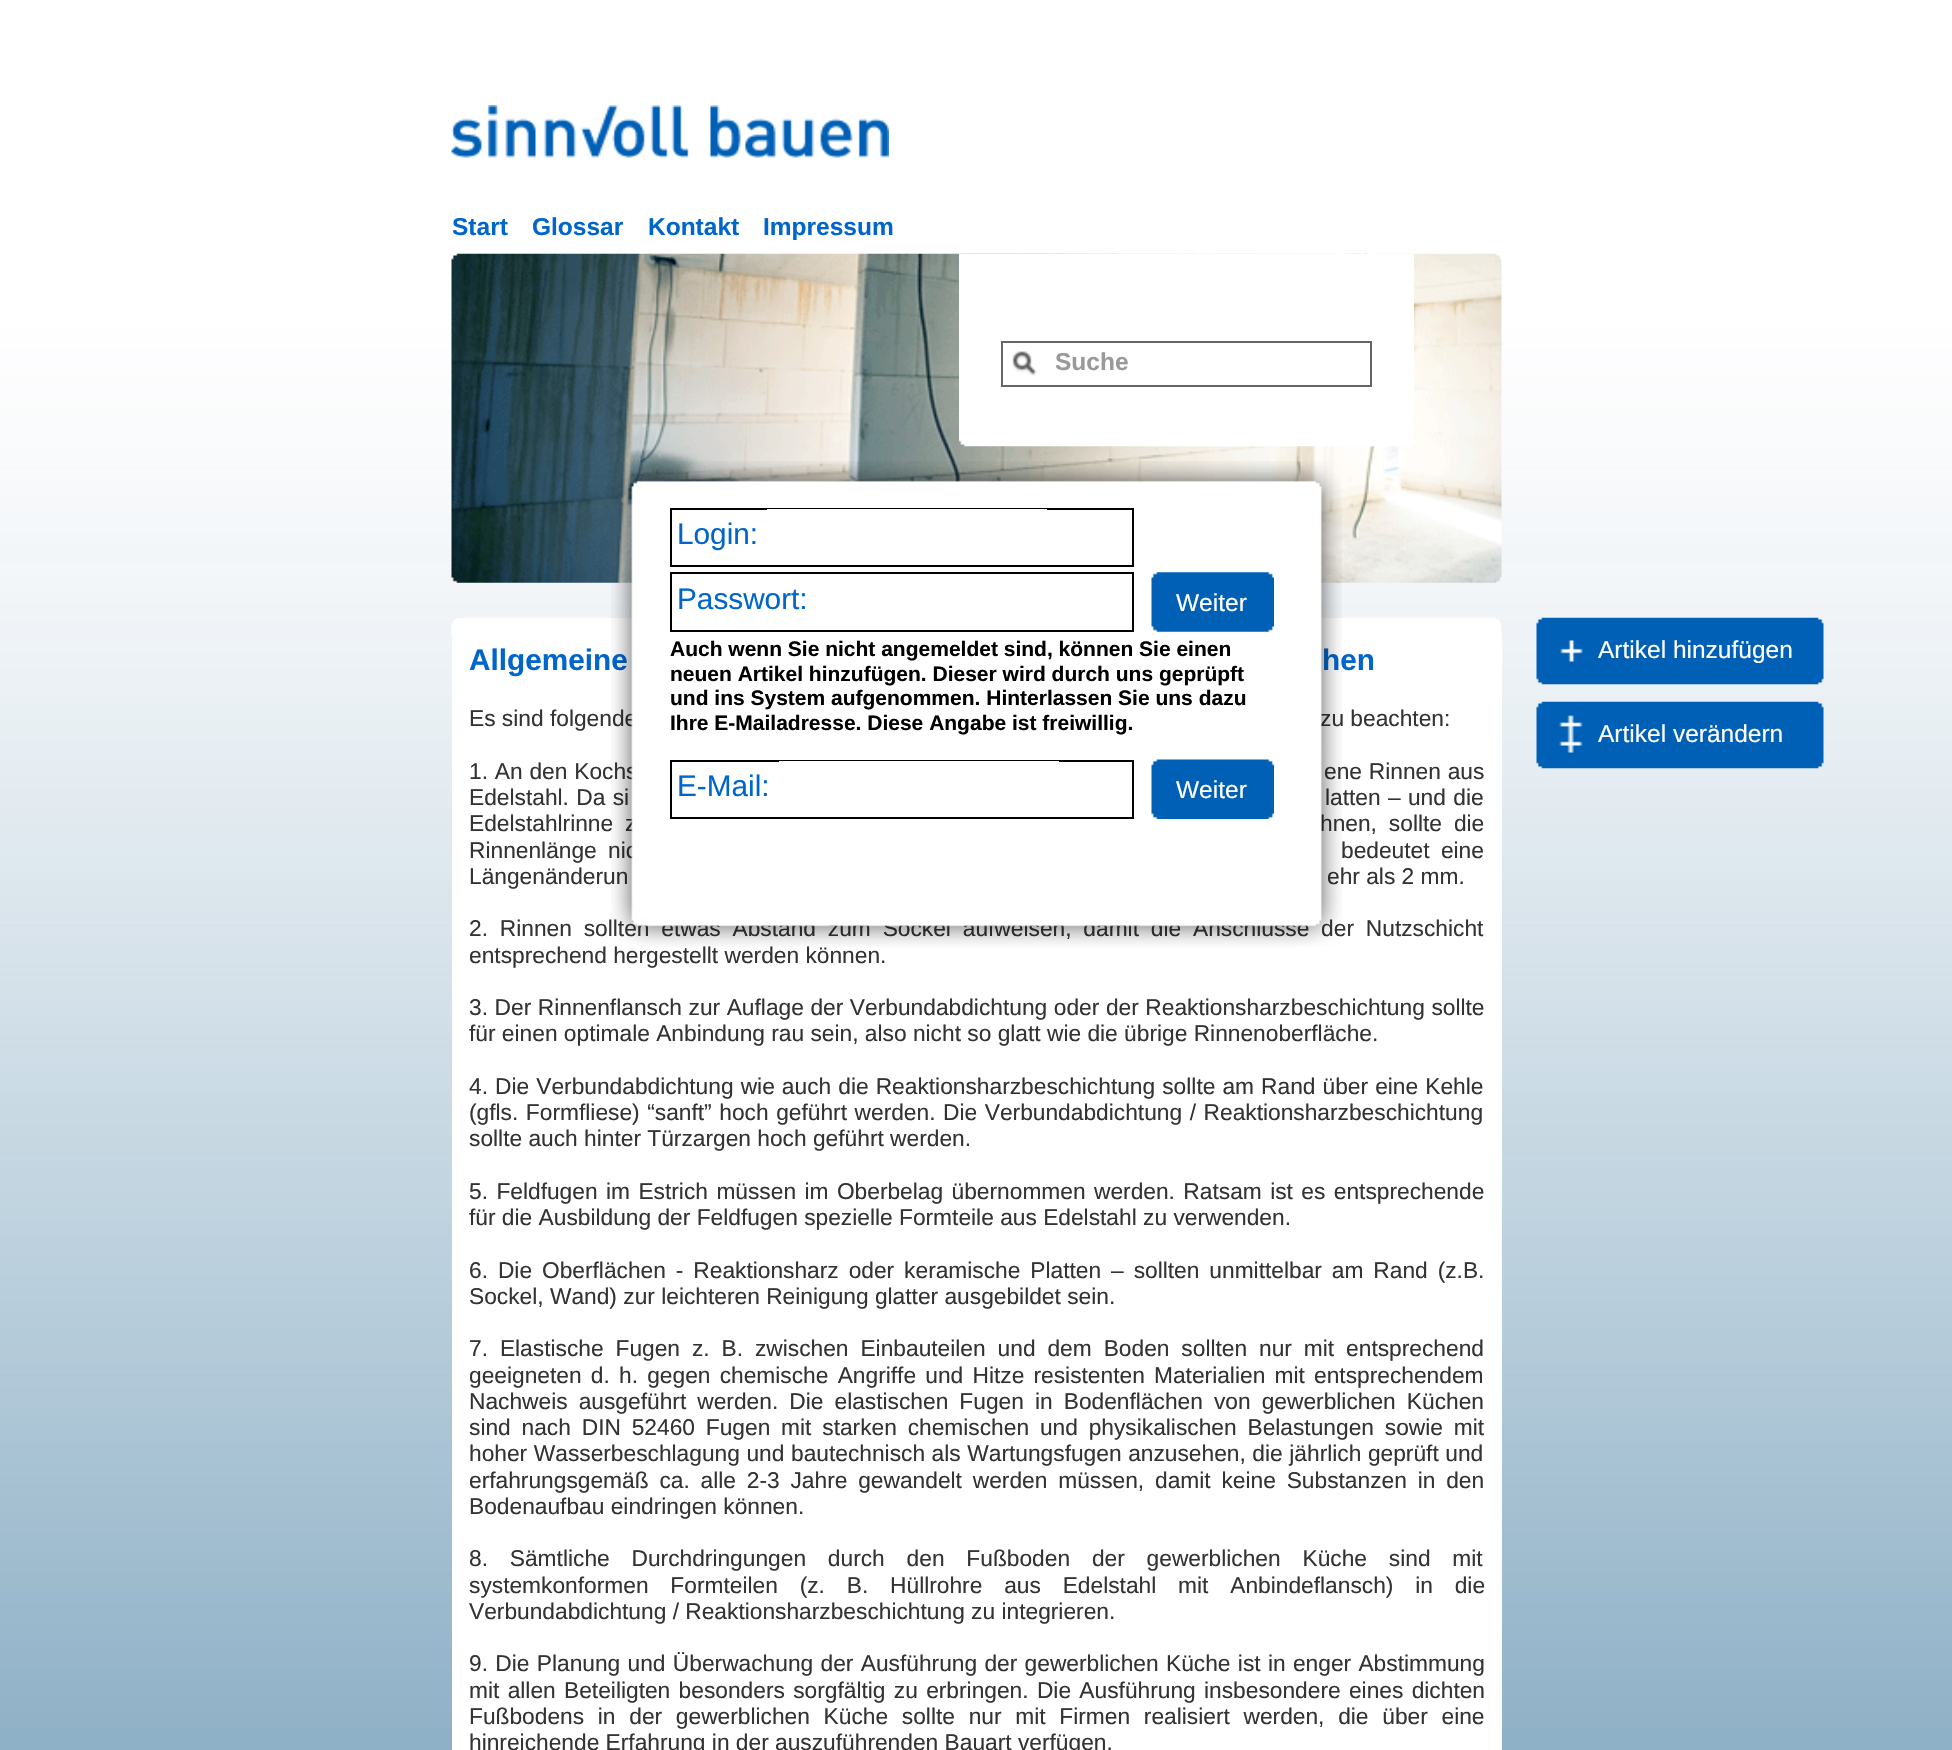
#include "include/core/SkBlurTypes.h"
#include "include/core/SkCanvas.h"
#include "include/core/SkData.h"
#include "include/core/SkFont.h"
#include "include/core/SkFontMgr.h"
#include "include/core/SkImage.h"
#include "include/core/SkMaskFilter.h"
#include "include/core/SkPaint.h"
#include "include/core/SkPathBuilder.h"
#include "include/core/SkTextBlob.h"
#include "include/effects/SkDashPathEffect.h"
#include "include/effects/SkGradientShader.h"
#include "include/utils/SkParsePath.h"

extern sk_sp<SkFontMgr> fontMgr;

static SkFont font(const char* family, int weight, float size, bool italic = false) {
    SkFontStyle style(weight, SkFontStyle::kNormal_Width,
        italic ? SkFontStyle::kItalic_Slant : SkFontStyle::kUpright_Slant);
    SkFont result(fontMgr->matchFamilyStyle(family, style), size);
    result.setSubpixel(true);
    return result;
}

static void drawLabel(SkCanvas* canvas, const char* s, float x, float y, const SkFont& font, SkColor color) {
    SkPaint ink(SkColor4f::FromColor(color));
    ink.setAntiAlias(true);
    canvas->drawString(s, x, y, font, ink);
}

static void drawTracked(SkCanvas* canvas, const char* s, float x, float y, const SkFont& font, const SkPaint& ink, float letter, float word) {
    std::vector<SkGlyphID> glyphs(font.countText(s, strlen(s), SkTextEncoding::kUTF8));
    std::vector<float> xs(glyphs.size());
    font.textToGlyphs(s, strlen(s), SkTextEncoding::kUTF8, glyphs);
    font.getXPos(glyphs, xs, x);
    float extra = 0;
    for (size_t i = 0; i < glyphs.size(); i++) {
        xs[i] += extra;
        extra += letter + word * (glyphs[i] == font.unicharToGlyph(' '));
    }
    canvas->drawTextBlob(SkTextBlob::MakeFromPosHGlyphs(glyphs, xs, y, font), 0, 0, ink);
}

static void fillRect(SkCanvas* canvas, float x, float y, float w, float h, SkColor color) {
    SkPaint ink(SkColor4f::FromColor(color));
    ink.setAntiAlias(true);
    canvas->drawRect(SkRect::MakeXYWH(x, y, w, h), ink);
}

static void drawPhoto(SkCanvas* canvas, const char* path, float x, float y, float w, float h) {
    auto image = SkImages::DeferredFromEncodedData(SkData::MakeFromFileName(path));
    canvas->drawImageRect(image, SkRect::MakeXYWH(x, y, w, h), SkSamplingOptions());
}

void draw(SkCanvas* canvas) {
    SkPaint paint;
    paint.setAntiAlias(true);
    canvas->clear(0xFFFFFFFF);
    drawPhoto(canvas, "assets/img1.png", 0, 0, 1952, 1750);
    drawPhoto(canvas, "assets/img2.png", 451, 105, 438, 53);
    SkFont font1 = font("Liberation Sans", 700, 24.5f);
    drawLabel(canvas, "Start", 452, 235, font1, 0xFF0066CC);
    drawLabel(canvas, "Glossar", 532, 235, font1, 0xFF0066CC);
    drawLabel(canvas, "Kontakt", 648, 235, font1, 0xFF0066CC);
    drawLabel(canvas, "Impressum", 763, 235, font1, 0xFF0066CC);
    drawPhoto(canvas, "assets/img3.png", 451, 253, 1051, 330);
    fillRect(canvas, 959, 254, 455, 175, 0xFFFFFFFF);
    drawPhoto(canvas, "assets/img4.png", 1012, 351, 25, 26);
    paint.setStroke(true);
    paint.setStrokeWidth(2);
    paint.setColor(0xFF666666);
    canvas->drawRect(SkRect::MakeXYWH(1002, 342, 369, 44), paint);
    drawLabel(canvas, "Suche", 1055, 370, font1, 0xFF999999);
    drawPhoto(canvas, "assets/img5.png", 959, 429, 455, 18);
    drawPhoto(canvas, "assets/img9.png", 451, 618, 1051, 18);
    fillRect(canvas, 452, 635, 1050, 1115, 0xFFFFFFFF);
    SkFont font2 = font("Liberation Sans", 700, 29.75f);
    drawLabel(canvas, "Allgemeine", 469, 670, font2, 0xFF0066CC);
    drawLabel(canvas, "hen", 1322, 670, font2, 0xFF0066CC);
    SkFont font3 = font("Liberation Sans", 400, 22.75f);
    drawLabel(canvas, "Es sind folgende", 469, 726, font3, 0xFF333333);
    drawLabel(canvas, "zu beachten:", 1320, 726, font3, 0xFF333333);
    paint.setStroke(false);
    paint.setColor(0xFF333333);
    drawTracked(canvas, "1. An den Kochs", 469, 779, font3, paint, 0, 0.5f);
    drawTracked(canvas, "ene Rinnen aus", 1324, 779, font3, paint, 0, 0.5f);
    drawTracked(canvas, "Edelstahl. Da si", 469, 805, font3, paint, 0, 1);
    drawTracked(canvas, "latten – und die", 1325, 805, font3, paint, 0, 1);
    drawTracked(canvas, "Edelstahlrinne z", 469, 831, font3, paint, 0, 5.6f);
    drawTracked(canvas, "hnen, sollte die", 1320, 831, font3, paint, 0, 5.6f);
    drawTracked(canvas, "Rinnenlänge nic", 469, 858, font3, paint, 0, 5);
    drawLabel(canvas, "Längenänderun", 469, 884, font3, 0xFF333333);
    drawLabel(canvas, "ehr als 2 mm.", 1327, 884, font3, 0xFF333333);
    drawTracked(canvas, "2. Rinnen sollten etwas Abstand zum Sockel aufweisen, damit die Anschlüsse der Nutzschicht", 469, 936, font3, paint, 0, 5.5f);
    drawLabel(canvas, "entsprechend hergestellt werden können.", 469, 963, font3, 0xFF333333);
    drawPhoto(canvas, "assets/img6.png", 611, 461, 731, 486);
    paint.setStroke(true);
    paint.setColor(0xFF000000);
    canvas->drawRect(SkRect::MakeXYWH(671, 509, 462, 57), paint);
    fillRect(canvas, 767, 509, 280, 1, 0xFFFFFFFF);
    SkFont font4 = font("Liberation Sans", 400, 29.75f);
    drawLabel(canvas, "Login:", 677, 544, font4, 0xFF0066CC);
    canvas->drawRect(SkRect::MakeXYWH(671, 573, 462, 58), paint);
    drawLabel(canvas, "Passwort:", 677, 609, font4, 0xFF0066CC);
    drawPhoto(canvas, "assets/img7.png", 1151, 572, 123, 60);
    SkFont font5 = font("Liberation Sans", 400, 24.5f);
    drawLabel(canvas, "Weiter", 1176, 611, font5, 0xFFFFFFFF);
    SkFont font6 = font("Liberation Sans", 700, 21);
    drawLabel(canvas, "Auch wenn Sie nicht angemeldet sind, können Sie einen", 670, 656, font6, 0xFF000000);
    drawLabel(canvas, "neuen Artikel hinzufügen. Dieser wird durch uns geprüpft", 670, 681, font6, 0xFF000000);
    drawLabel(canvas, "und ins System aufgenommen. Hinterlassen Sie uns dazu", 670, 705, font6, 0xFF000000);
    drawLabel(canvas, "Ihre E-Mailadresse. Diese Angabe ist freiwillig.", 670, 730, font6, 0xFF000000);
    canvas->drawRect(SkRect::MakeXYWH(671, 761, 462, 57), paint);
    fillRect(canvas, 779, 761, 280, 1, 0xFFFFFFFF);
    drawLabel(canvas, "E-Mail:", 677, 796, font4, 0xFF0066CC);
    drawPhoto(canvas, "assets/img8.png", 1151, 759, 123, 60);
    drawLabel(canvas, "Weiter", 1176, 798, font5, 0xFFFFFFFF);
    paint.setStroke(false);
    paint.setColor(0xFF333333);
    drawTracked(canvas, "bedeutet eine", 1341, 858, font3, paint, 0, 5);
    drawTracked(canvas, "3. Der Rinnenflansch zur Auflage der Verbundabdichtung oder der Reaktionsharzbeschichtung sollte", 469, 1015, font3, paint, 0, 0.25f);
    drawLabel(canvas, "für einen optimale Anbindung rau sein, also nicht so glatt wie die übrige Rinnenoberfläche.", 469, 1041, font3, 0xFF333333);
    drawTracked(canvas, "4. Die Verbundabdichtung wie auch die Reaktionsharzbeschichtung sollte am Rand über eine Kehle", 469, 1094, font3, paint, 0, 0.75f);
    drawTracked(canvas, "(gfls. Formfliese) “sanft” hoch geführt werden. Die Verbundabdichtung / Reaktionsharzbeschichtung", 469, 1120, font3, paint, 0, 1.25f);
    drawLabel(canvas, "sollte auch hinter Türzargen hoch geführt werden.", 469, 1146, font3, 0xFF333333);
    drawTracked(canvas, "5. Feldfugen im Estrich müssen im Oberbelag übernommen werden. Ratsam ist es entsprechende", 469, 1199, font3, paint, 0, 2.1f);
    drawLabel(canvas, "für die Ausbildung der Feldfugen spezielle Formteile aus Edelstahl zu verwenden.", 469, 1225, font3, 0xFF333333);
    drawTracked(canvas, "6. Die Oberflächen - Reaktionsharz oder keramische Platten – sollten unmittelbar am Rand (z.B.", 469, 1278, font3, paint, 0, 3.6f);
    drawLabel(canvas, "Sockel, Wand) zur leichteren Reinigung glatter ausgebildet sein.", 469, 1304, font3, 0xFF333333);
    drawTracked(canvas, "7. Elastische Fugen z. B. zwischen Einbauteilen und dem Boden sollten nur mit entsprechend", 469, 1356, font3, paint, 0, 5.6f);
    drawTracked(canvas, "geeigneten d. h. gegen chemische Angriffe und Hitze resistenten Materialien mit entsprechendem", 469, 1383, font3, paint, 0, 2.9f);
    drawTracked(canvas, "Nachweis ausgeführt werden. Die elastischen Fugen in Bodenflächen von gewerblichen Küchen", 469, 1409, font3, paint, 0, 4.75f);
    drawTracked(canvas, "sind nach DIN 52460 Fugen mit starken chemischen und physikalischen Belastungen sowie mit", 469, 1435, font3, paint, 0, 4.5f);
    drawTracked(canvas, "hoher Wasserbeschlagung und bautechnisch als Wartungsfugen anzusehen, die jährlich geprüft und", 469, 1461, font3, paint, 0, 0.25f);
    drawTracked(canvas, "erfahrungsgemäß ca. alle 2-3 Jahre gewandelt werden müssen, damit keine Substanzen in den", 469, 1488, font3, paint, 0, 4.5f);
    drawLabel(canvas, "Bodenaufbau eindringen können.", 469, 1514, font3, 0xFF333333);
    drawTracked(canvas, "8. Sämtliche Durchdringungen durch den Fußboden der gewerblichen Küche sind mit", 469, 1566, font3, paint, 0, 15.5f);
    drawTracked(canvas, "systemkonformen Formteilen (z. B. Hüllrohre aus Edelstahl mit Anbindeflansch) in die", 469, 1593, font3, paint, 0, 15.5f);
    drawLabel(canvas, "Verbundabdichtung / Reaktionsharzbeschichtung zu integrieren.", 469, 1619, font3, 0xFF333333);
    drawTracked(canvas, "9. Die Planung und Überwachung der Ausführung der gewerblichen Küche ist in enger Abstimmung", 469, 1671, font3, paint, 0, 1);
    drawTracked(canvas, "mit allen Beteiligten besonders sorgfältig zu erbringen. Die Ausführung insbesondere eines dichten", 469, 1698, font3, paint, 0, 2);
    drawTracked(canvas, "Fußbodens in der gewerblichen Küche sollte nur mit Firmen realisiert werden, die über eine", 469, 1724, font3, paint, 0, 7.4f);
    drawLabel(canvas, "hinreichende Erfahrung in der auszuführenden Bauart verfügen.", 469, 1750, font3, 0xFF333333);
    drawPhoto(canvas, "assets/img10.png", 1536, 617, 288, 68);
    drawLabel(canvas, "Artikel hinzufügen", 1598, 658, font5, 0xFFFFFFFF);
    drawPhoto(canvas, "assets/img11.png", 1536, 701, 288, 68);
    drawLabel(canvas, "Artikel verändern", 1598, 742, font5, 0xFFFFFFFF);
}
